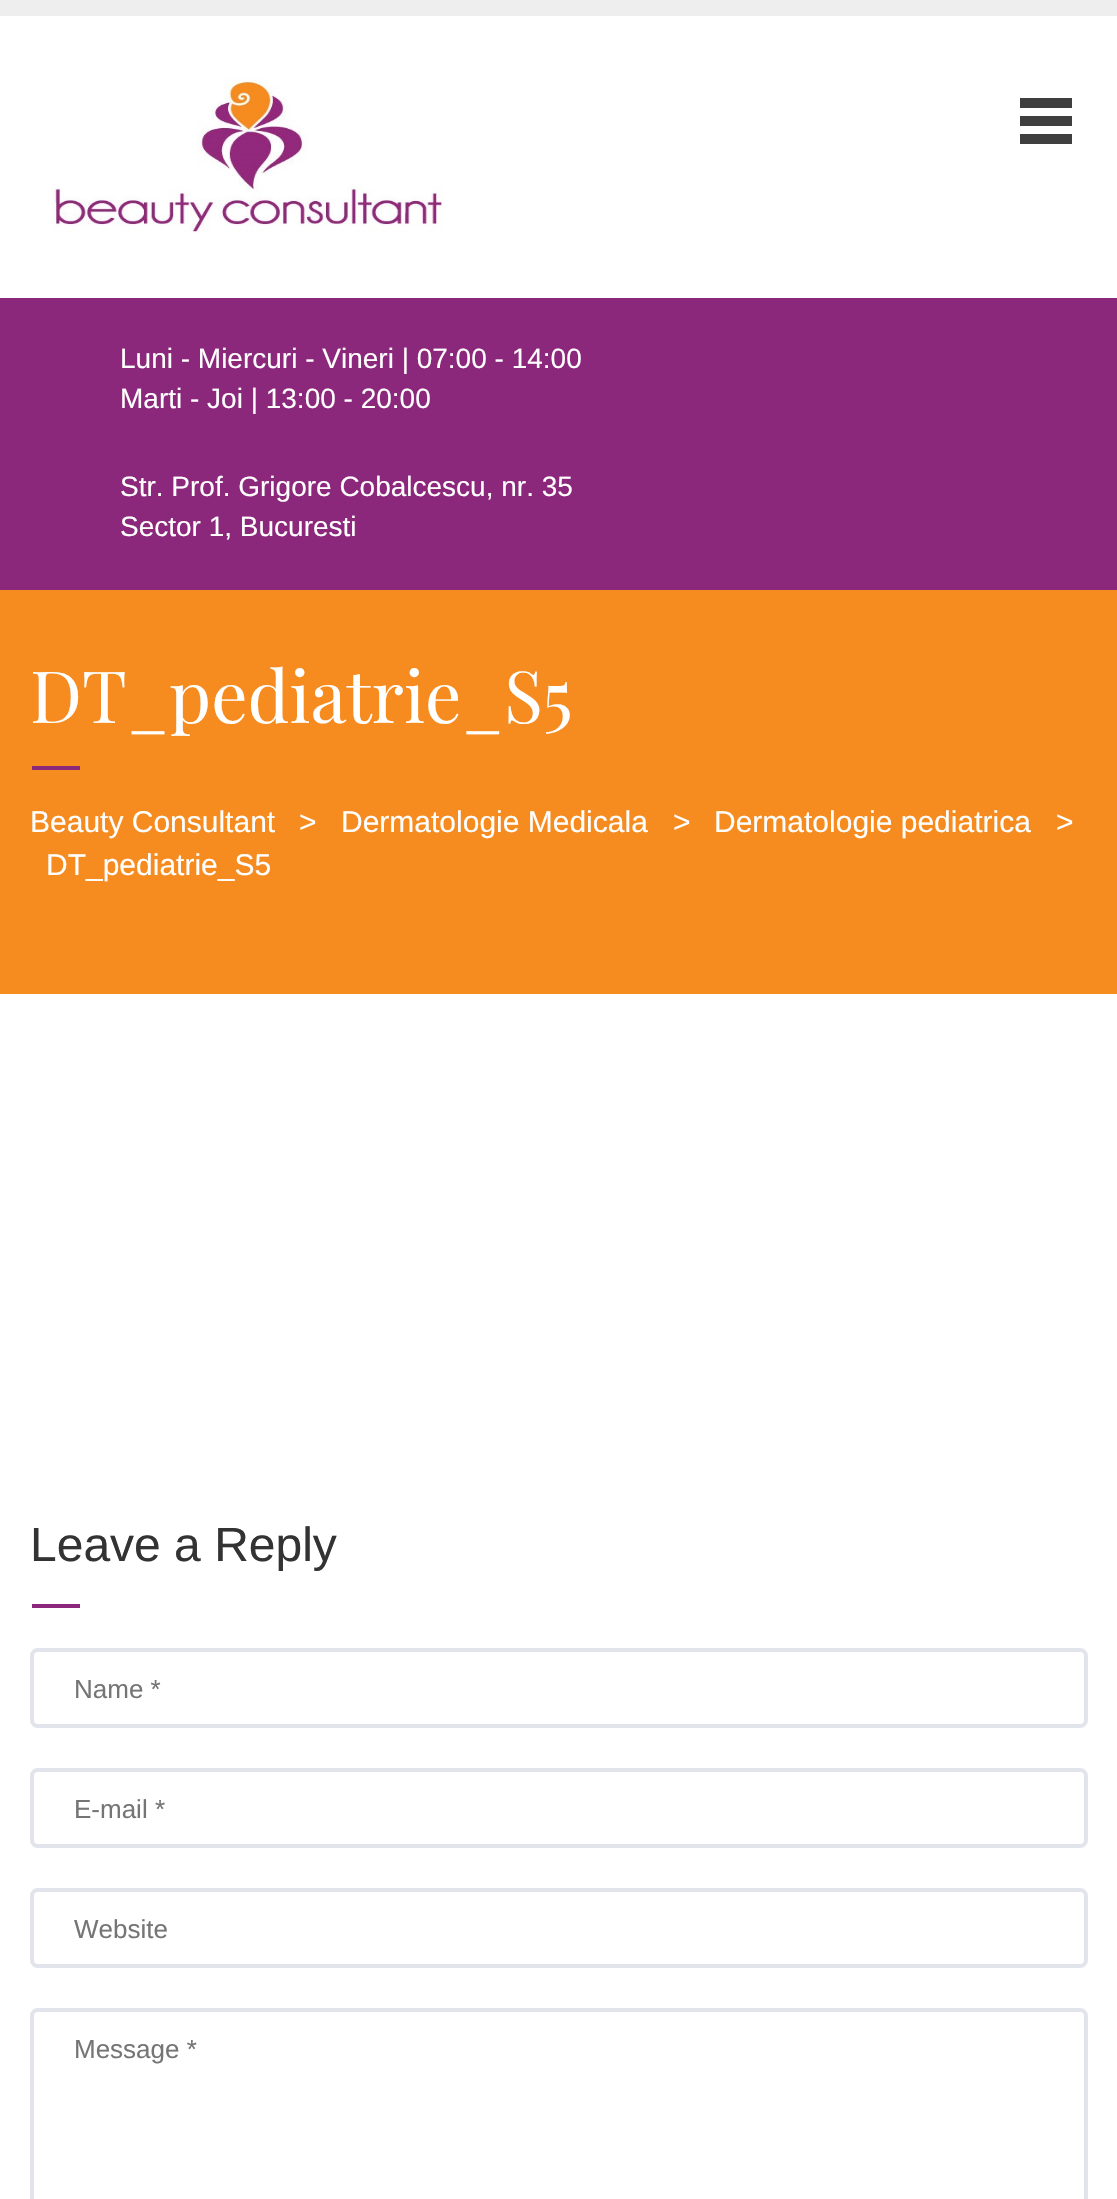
#include "include/core/SkBlurTypes.h"
#include "include/core/SkCanvas.h"
#include "include/core/SkData.h"
#include "include/core/SkFont.h"
#include "include/core/SkFontMgr.h"
#include "include/core/SkImage.h"
#include "include/core/SkMaskFilter.h"
#include "include/core/SkPaint.h"
#include "include/core/SkPathBuilder.h"
#include "include/core/SkTextBlob.h"
#include "include/effects/SkDashPathEffect.h"
#include "include/effects/SkGradientShader.h"
#include "include/utils/SkParsePath.h"

extern sk_sp<SkFontMgr> fontMgr;

static SkFont font(const char* family, int weight, float size, bool italic = false) {
    SkFontStyle style(weight, SkFontStyle::kNormal_Width,
        italic ? SkFontStyle::kItalic_Slant : SkFontStyle::kUpright_Slant);
    SkFont result(fontMgr->matchFamilyStyle(family, style), size);
    result.setSubpixel(true);
    return result;
}

static void drawLabel(SkCanvas* canvas, const char* s, float x, float y, const SkFont& font, SkColor color) {
    SkPaint ink(SkColor4f::FromColor(color));
    ink.setAntiAlias(true);
    canvas->drawString(s, x, y, font, ink);
}

static void fillRect(SkCanvas* canvas, float x, float y, float w, float h, SkColor color) {
    SkPaint ink(SkColor4f::FromColor(color));
    ink.setAntiAlias(true);
    canvas->drawRect(SkRect::MakeXYWH(x, y, w, h), ink);
}

static void drawPhoto(SkCanvas* canvas, const char* path, float x, float y, float w, float h) {
    auto image = SkImages::DeferredFromEncodedData(SkData::MakeFromFileName(path));
    canvas->drawImageRect(image, SkRect::MakeXYWH(x, y, w, h), SkSamplingOptions());
}

void draw(SkCanvas* canvas) {
    SkPaint paint;
    paint.setAntiAlias(true);
    canvas->clear(0xFFFFFFFF);
    fillRect(canvas, 0, 0, 1117, 16, 0xFFEEEEEE);
    drawPhoto(canvas, "assets/img1.png", 51, 76, 394, 157);
    fillRect(canvas, 1020, 116, 52, 10, 0xFF3F3F3F);
    fillRect(canvas, 1020, 98, 52, 10, 0xFF3F3F3F);
    fillRect(canvas, 1020, 134, 52, 10, 0xFF3F3F3F);
    fillRect(canvas, 0, 298, 1117, 292, 0xFF8C287C);
    SkFont font1 = font("Arimo", 400, 28);
    drawLabel(canvas, "Luni - Miercuri - Vineri | 07:00 - 14:00", 120, 368, font1, 0xFFFFFFFF);
    drawLabel(canvas, "Marti - Joi | 13:00 - 20:00", 120, 408, font1, 0xFFFFFFFF);
    drawLabel(canvas, "Str. Prof. Grigore Cobalcescu, nr. 35", 120, 496, font1, 0xFFFFFFFF);
    drawLabel(canvas, "Sector 1, Bucuresti", 120, 536, font1, 0xFFFFFFFF);
    fillRect(canvas, 0, 590, 1117, 404, 0xFFF68C1F);
    SkFont font2 = font("Playfair Display", 400, 72);
    drawLabel(canvas, "DT_pediatrie_S5", 30, 723, font2, 0xFFFFFFFF);
    fillRect(canvas, 32, 766, 48, 4, 0xFF8C287C);
    SkFont font3 = font("Arimo", 400, 30);
    drawLabel(canvas, "Beauty Consultant", 30, 832, font3, 0xFFFFFFFF);
    drawLabel(canvas, ">", 299, 832, font3, 0xFFFFFFFF);
    drawLabel(canvas, "Dermatologie Medicala", 341, 832, font3, 0xFFFFFFFF);
    drawLabel(canvas, ">", 673, 832, font3, 0xFFFFFFFF);
    drawLabel(canvas, "Dermatologie pediatrica", 714, 832, font3, 0xFFFFFFFF);
    drawLabel(canvas, ">", 1056, 832, font3, 0xFFFFFFFF);
    drawLabel(canvas, "DT_pediatrie_S5", 46, 875, font3, 0xFFFFFFFF);
    SkFont font4 = font("Arimo", 400, 48);
    drawLabel(canvas, "Leave a Reply", 30, 1561, font4, 0xFF333333);
    fillRect(canvas, 32, 1604, 48, 4, 0xFF8C287C);
    paint.setStroke(true);
    paint.setStrokeWidth(4);
    paint.setColor(0xFFE1E4EB);
    canvas->drawRoundRect(SkRect::MakeXYWH(32, 1650, 1054, 76), 6, 6, paint);
    SkFont font5 = font("Arimo", 400, 26);
    drawLabel(canvas, "Name *", 74, 1698, font5, 0xFF757575);
    canvas->drawRoundRect(SkRect::MakeXYWH(32, 1770, 1054, 76), 6, 6, paint);
    drawLabel(canvas, "E-mail *", 74, 1818, font5, 0xFF757575);
    canvas->drawRoundRect(SkRect::MakeXYWH(32, 1890, 1054, 76), 6, 6, paint);
    drawLabel(canvas, "Website", 74, 1938, font5, 0xFF757575);
    canvas->drawRoundRect(SkRect::MakeXYWH(32, 2010, 1054, 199), 6, 6, paint);
    drawLabel(canvas, "Message *", 74, 2058, font5, 0xFF757575);
}
